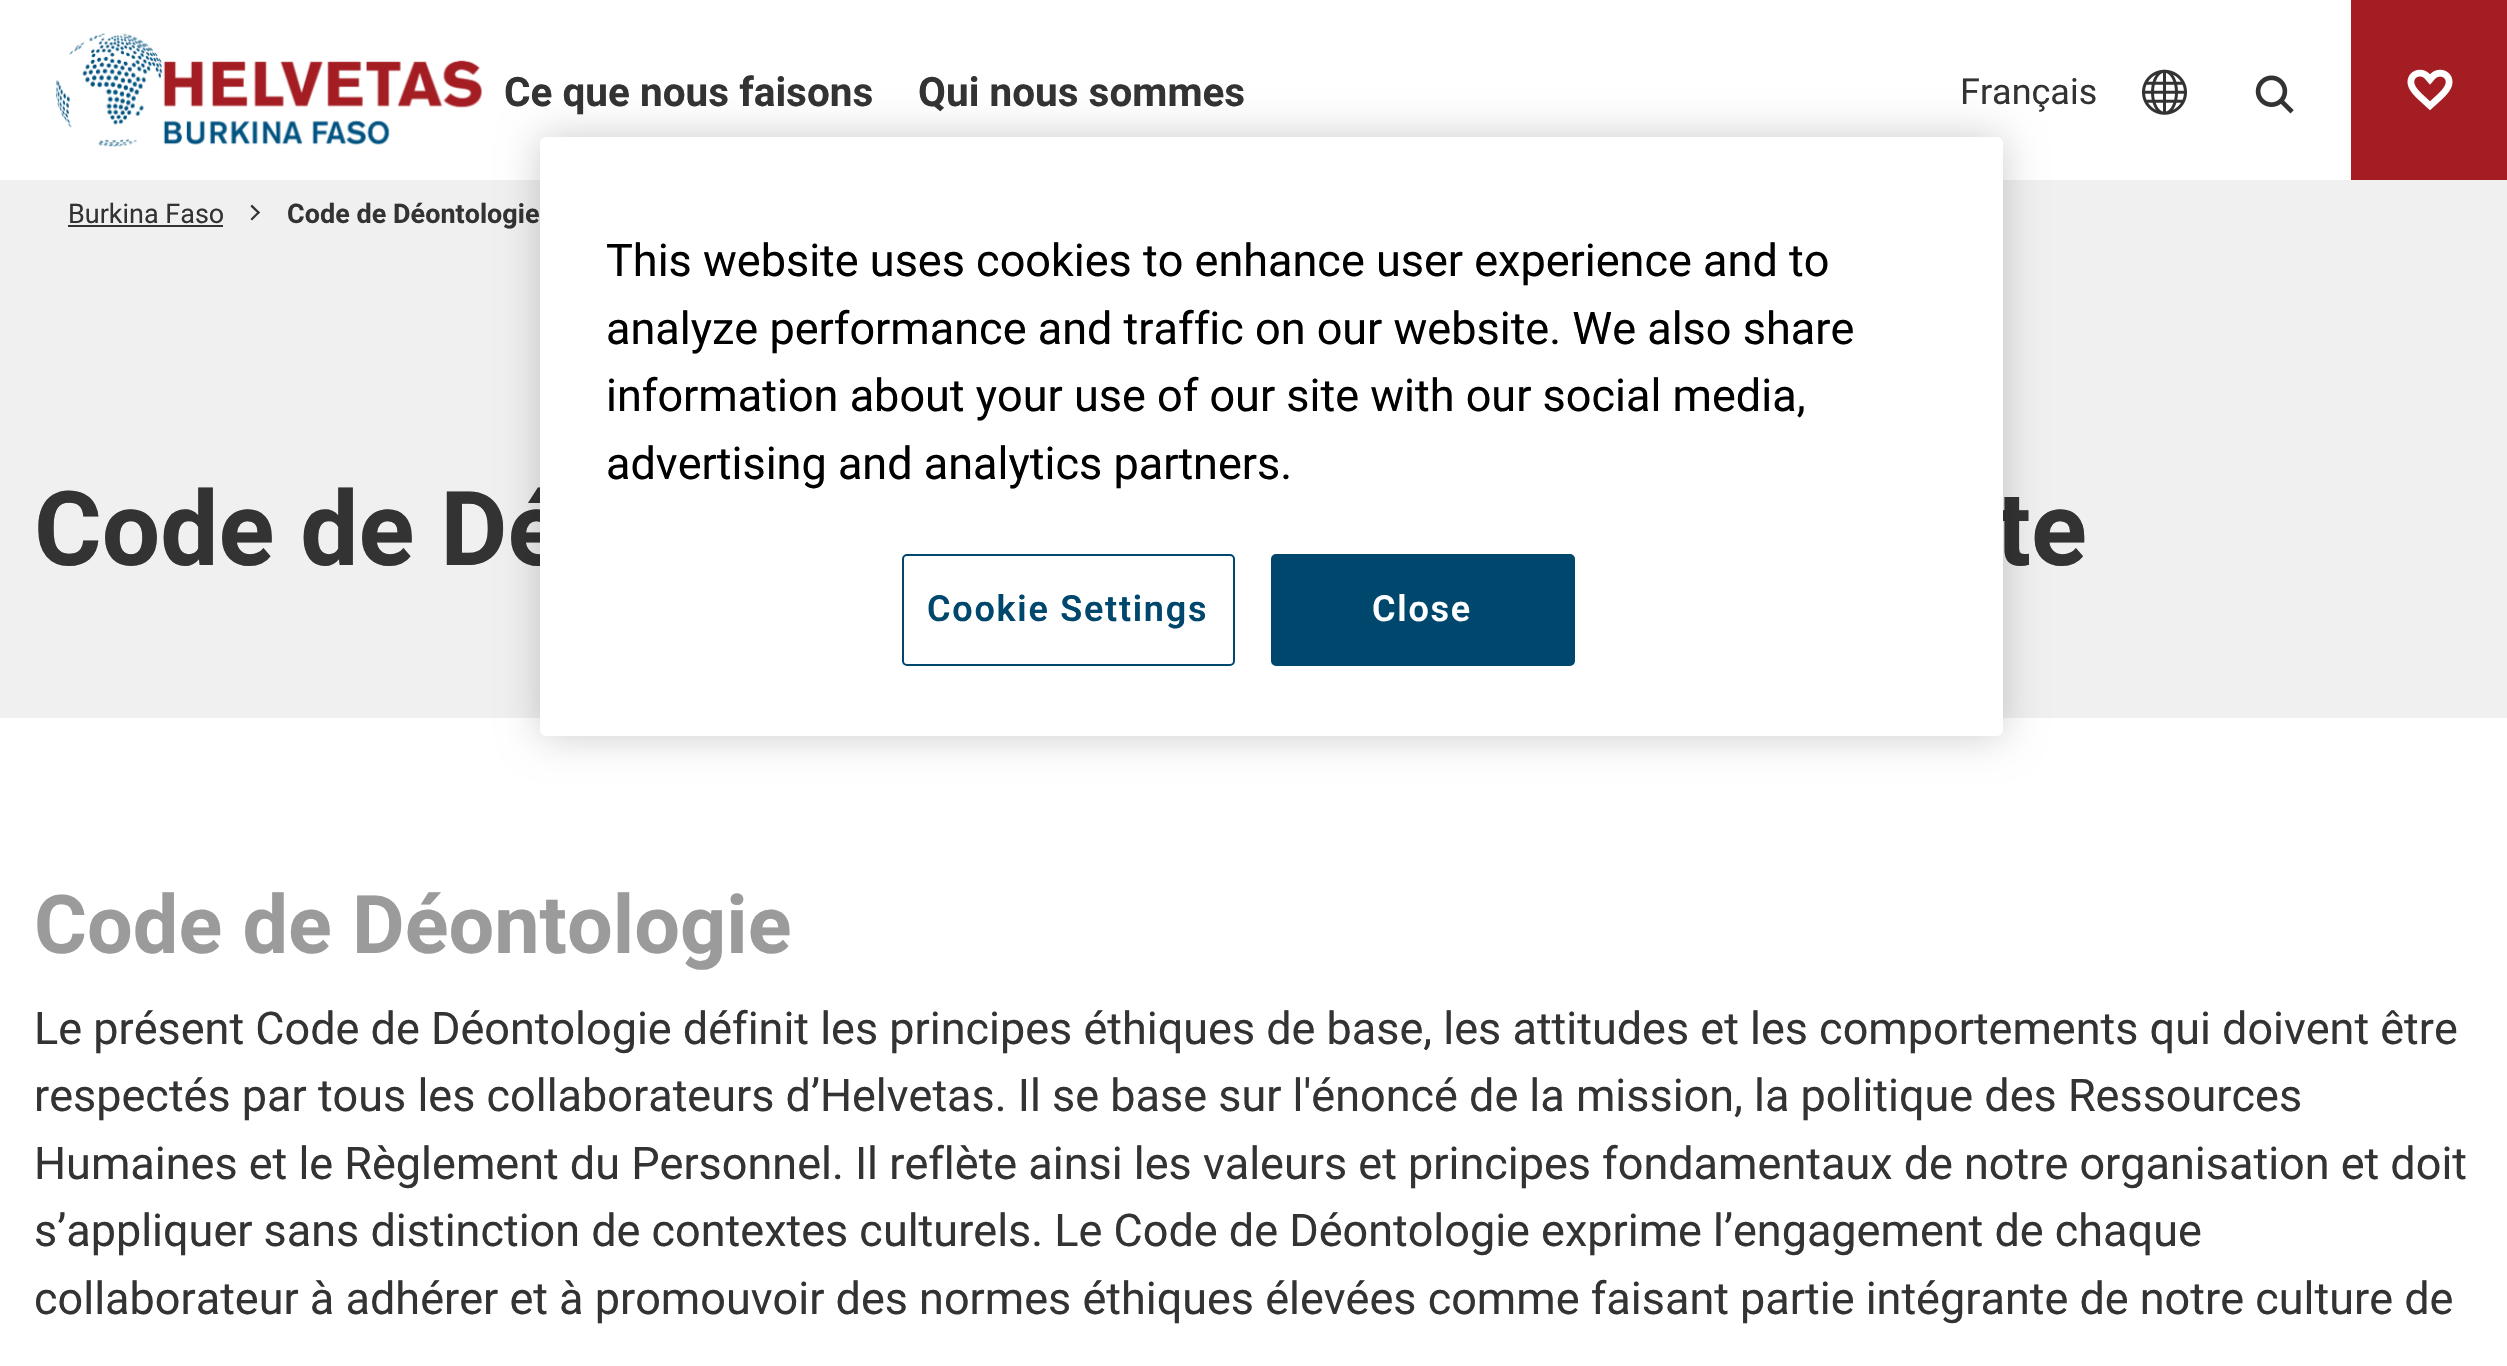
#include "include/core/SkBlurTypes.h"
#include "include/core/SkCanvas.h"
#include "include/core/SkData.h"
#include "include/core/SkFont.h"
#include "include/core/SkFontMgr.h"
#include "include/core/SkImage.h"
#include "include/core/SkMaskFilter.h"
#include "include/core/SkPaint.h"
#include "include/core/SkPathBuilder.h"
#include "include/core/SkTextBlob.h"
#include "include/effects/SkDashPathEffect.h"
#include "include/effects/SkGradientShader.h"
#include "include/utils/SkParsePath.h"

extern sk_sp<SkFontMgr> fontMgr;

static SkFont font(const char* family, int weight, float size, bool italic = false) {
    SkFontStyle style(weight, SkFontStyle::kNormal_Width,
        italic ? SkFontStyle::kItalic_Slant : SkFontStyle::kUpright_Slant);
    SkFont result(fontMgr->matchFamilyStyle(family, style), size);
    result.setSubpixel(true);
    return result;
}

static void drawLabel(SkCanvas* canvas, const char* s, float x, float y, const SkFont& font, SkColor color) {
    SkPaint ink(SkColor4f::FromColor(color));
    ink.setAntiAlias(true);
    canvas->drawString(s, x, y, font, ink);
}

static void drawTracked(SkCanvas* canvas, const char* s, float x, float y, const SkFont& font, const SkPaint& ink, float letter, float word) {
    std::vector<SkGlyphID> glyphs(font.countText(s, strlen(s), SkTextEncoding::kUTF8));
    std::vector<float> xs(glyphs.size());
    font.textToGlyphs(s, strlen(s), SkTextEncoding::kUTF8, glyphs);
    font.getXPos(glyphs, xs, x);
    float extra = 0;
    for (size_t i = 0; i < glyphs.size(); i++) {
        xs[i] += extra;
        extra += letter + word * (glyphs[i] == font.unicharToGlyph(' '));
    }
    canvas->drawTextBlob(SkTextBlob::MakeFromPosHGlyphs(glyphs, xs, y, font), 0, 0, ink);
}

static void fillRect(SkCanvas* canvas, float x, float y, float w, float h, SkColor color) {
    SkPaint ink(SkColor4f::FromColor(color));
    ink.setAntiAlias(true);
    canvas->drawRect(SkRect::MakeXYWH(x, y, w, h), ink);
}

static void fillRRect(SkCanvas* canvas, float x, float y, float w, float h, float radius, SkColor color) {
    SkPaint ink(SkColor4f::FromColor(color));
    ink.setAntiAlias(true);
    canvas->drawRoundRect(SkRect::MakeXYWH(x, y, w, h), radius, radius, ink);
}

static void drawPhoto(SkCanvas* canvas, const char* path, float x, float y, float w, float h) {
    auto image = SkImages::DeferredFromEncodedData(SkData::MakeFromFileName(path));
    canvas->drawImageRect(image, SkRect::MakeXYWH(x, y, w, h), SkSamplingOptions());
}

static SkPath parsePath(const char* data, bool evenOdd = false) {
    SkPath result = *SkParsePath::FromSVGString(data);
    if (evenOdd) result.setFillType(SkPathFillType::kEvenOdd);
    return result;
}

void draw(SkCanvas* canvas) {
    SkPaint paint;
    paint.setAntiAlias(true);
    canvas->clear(0xFFFFFFFF);
    drawPhoto(canvas, "assets/img1.png", 56, 33, 426, 114);
    SkFont font1 = font("Roboto", 700, 40.5f);
    drawLabel(canvas, "Ce que nous faisons", 504, 106, font1, 0xFF333333);
    drawLabel(canvas, "Qui nous sommes", 918, 106, font1, 0xFF333333);
    SkFont font2 = font("Roboto", 400, 36);
    drawLabel(canvas, "Français", 1960, 104, font2, 0xFF333333);
    drawPhoto(canvas, "assets/img2.png", 2142, 69, 45, 46);
    drawPhoto(canvas, "assets/img3.png", 2255, 75, 39, 39);
    fillRect(canvas, 2351, 0, 156, 180, 0xFFA31D23);
    drawPhoto(canvas, "assets/img4.png", 2407, 69, 46, 42);
    fillRect(canvas, 0, 180, 2507, 538, 0xFFF0F0F0);
    SkFont font3 = font("Roboto", 400, 27);
    drawLabel(canvas, "Burkina Faso", 68, 223, font3, 0xFF333333);
    fillRect(canvas, 68, 225, 155, 2, 0xFF333333);
    paint.setColor(0xFF333333);
    canvas->drawPath(parsePath("M252 204.5L260 212.5L258.5 214L250.5 206.5Z"), paint);
    canvas->drawPath(parsePath("M258.5 211L260 212.5L252 220.5L250.5 219Z"), paint);
    SkFont font4 = font("Roboto", 700, 27);
    drawLabel(canvas, "Code de Déontologie", 287, 223, font4, 0xFF333333);
    SkFont font5 = font("Roboto", 700, 103.5f);
    drawLabel(canvas, "Code de Dé", 34, 565, font5, 0xFF333333);
    drawLabel(canvas, "te", 1996, 565, font5, 0xFF333333);
    SkFont font6 = font("Roboto", 700, 81);
    drawLabel(canvas, "Code de Déontologie", 34, 953, font6, 0xFF9B9B9B);
    SkFont font7 = font("Roboto", 400, 45);
    drawLabel(canvas, "Le présent Code de Déontologie définit les principes éthiques de base, les attitudes et les comportements qui doivent être", 34, 1044, font7, 0xFF333333);
    drawLabel(canvas, "respectés par tous les collaborateurs d’Helvetas. Il se base sur l'énoncé de la mission, la politique des Ressources", 34, 1111, font7, 0xFF333333);
    drawLabel(canvas, "Humaines et le Règlement du Personnel. Il reflète ainsi les valeurs et principes fondamentaux de notre organisation et doit", 34, 1179, font7, 0xFF333333);
    drawLabel(canvas, "s’appliquer sans distinction de contextes culturels. Le Code de Déontologie exprime l’engagement de chaque", 34, 1246, font7, 0xFF333333);
    drawLabel(canvas, "collaborateur à adhérer et à promouvoir des normes éthiques élevées comme faisant partie intégrante de notre culture de", 34, 1314, font7, 0xFF333333);
    paint.setColor(0x33000000);
    paint.setMaskFilter(SkMaskFilter::MakeBlur(kNormal_SkBlurStyle, 20));
    canvas->drawRoundRect(SkRect::MakeXYWH(540, 137, 1463, 599), 6, 6, paint);
    paint.setMaskFilter(nullptr);
    fillRRect(canvas, 540, 137, 1463, 599, 6, 0xFFFFFFFF);
    SkFont font8 = font("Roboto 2", 400, 45);
    drawLabel(canvas, "This website uses cookies to enhance user experience and to", 606, 276, font8, 0xFF000000);
    drawLabel(canvas, "analyze performance and traffic on our website. We also share", 606, 344, font8, 0xFF000000);
    drawLabel(canvas, "information about your use of our site with our social media,", 606, 411, font8, 0xFF000000);
    drawLabel(canvas, "advertising and analytics partners.", 606, 479, font8, 0xFF000000);
    paint.setStroke(true);
    paint.setStrokeWidth(2);
    paint.setColor(0xFF00476E);
    canvas->drawRoundRect(SkRect::MakeXYWH(903, 555, 331, 110), 4, 4, paint);
    SkFont font9 = font("Roboto", 600, 36);
    paint.setStroke(false);
    drawTracked(canvas, "Cookie Settings", 927, 621, font9, paint, 1.75f, 0);
    canvas->drawRoundRect(SkRect::MakeXYWH(1272, 555, 302, 110), 4, 4, paint);
    paint.setStroke(true);
    canvas->drawRoundRect(SkRect::MakeXYWH(1272, 555, 302, 110), 4, 4, paint);
    paint.setStroke(false);
    paint.setColor(0xFFFFFFFF);
    drawTracked(canvas, "Close", 1372, 621, font9, paint, 1.75f, 0);
}
